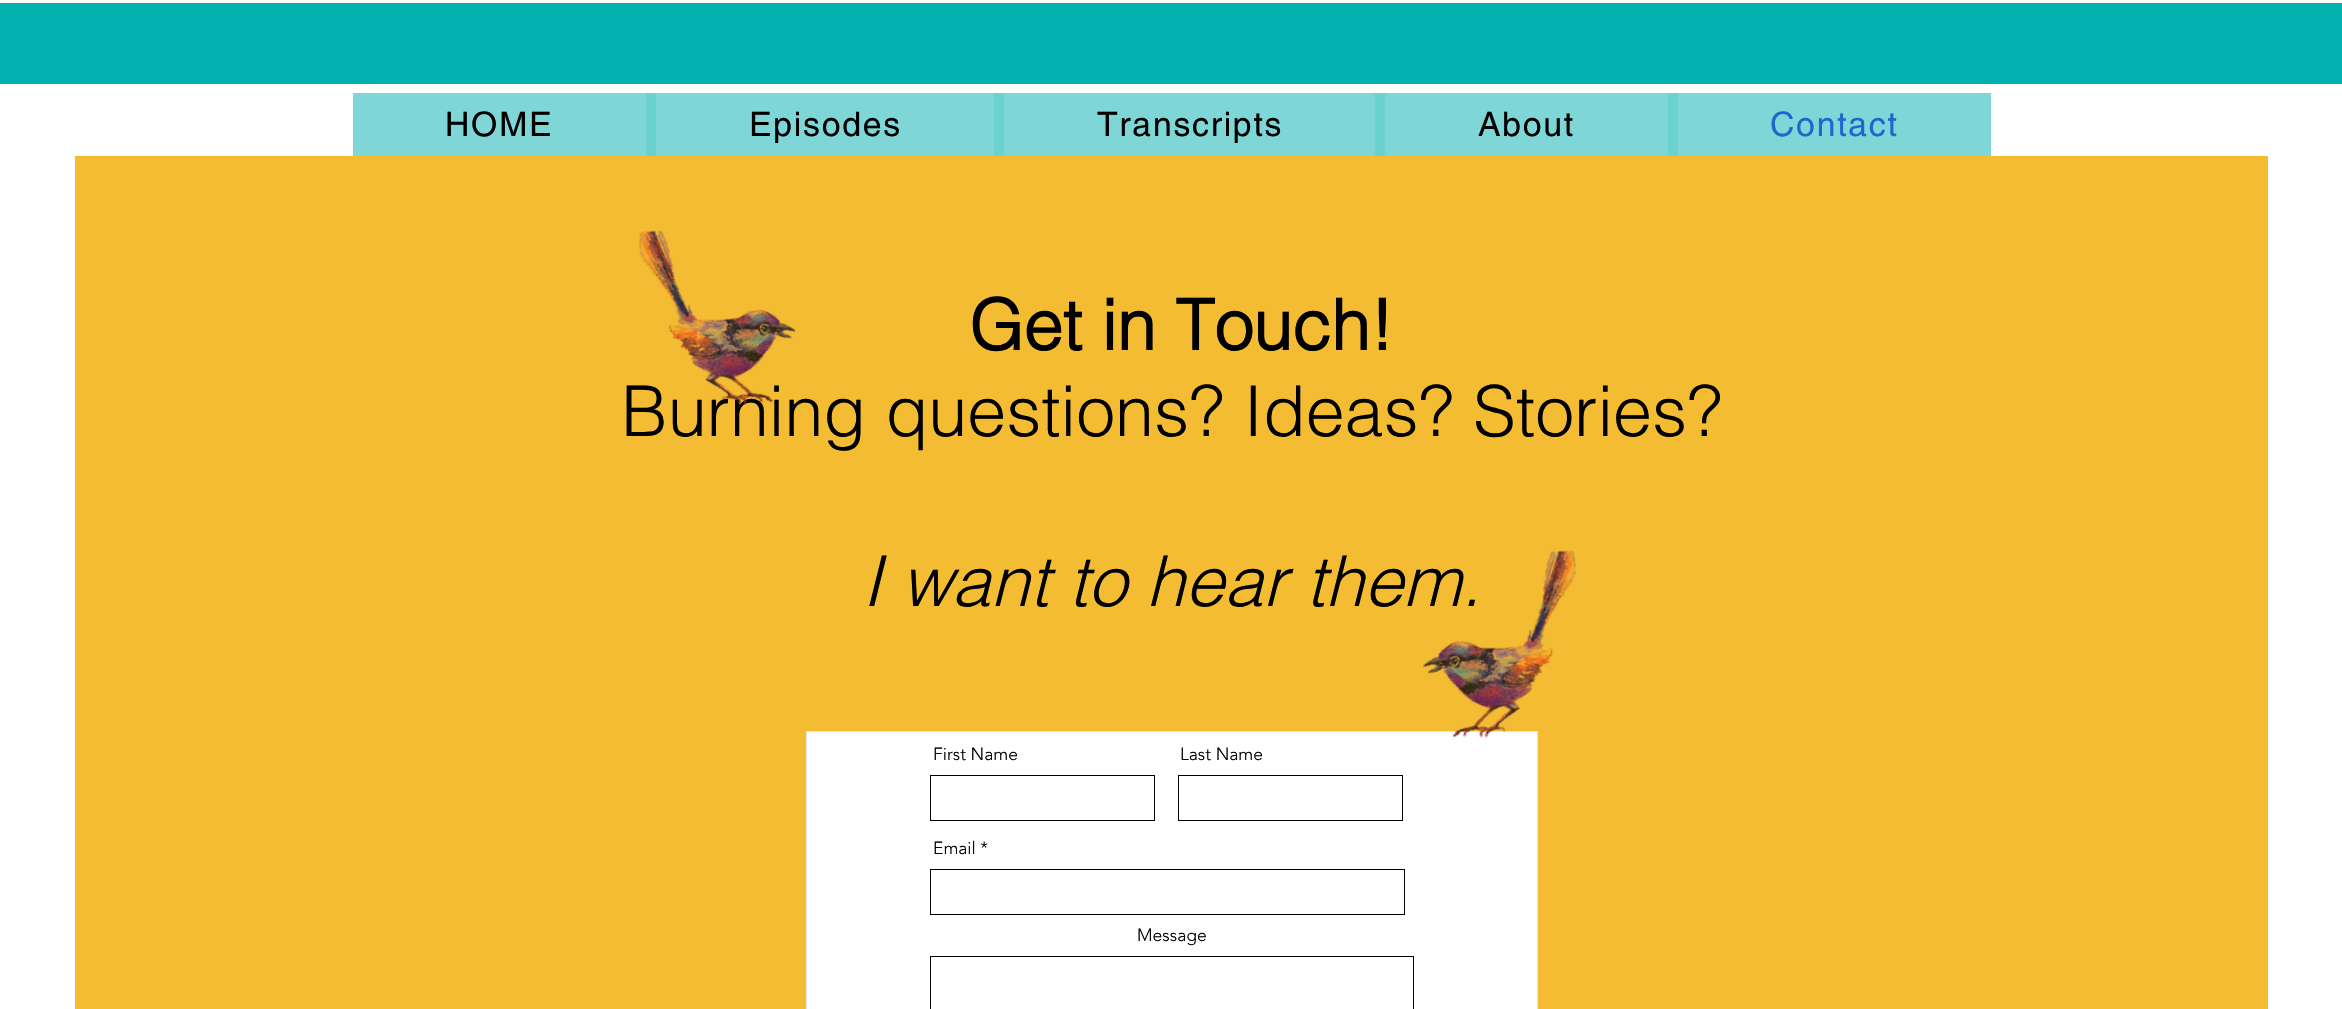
#include "include/core/SkBlurTypes.h"
#include "include/core/SkCanvas.h"
#include "include/core/SkData.h"
#include "include/core/SkFont.h"
#include "include/core/SkFontMgr.h"
#include "include/core/SkImage.h"
#include "include/core/SkMaskFilter.h"
#include "include/core/SkPaint.h"
#include "include/core/SkPathBuilder.h"
#include "include/core/SkTextBlob.h"
#include "include/effects/SkDashPathEffect.h"
#include "include/effects/SkGradientShader.h"
#include "include/utils/SkParsePath.h"

extern sk_sp<SkFontMgr> fontMgr;

static SkFont font(const char* family, int weight, float size, bool italic = false) {
    SkFontStyle style(weight, SkFontStyle::kNormal_Width,
        italic ? SkFontStyle::kItalic_Slant : SkFontStyle::kUpright_Slant);
    SkFont result(fontMgr->matchFamilyStyle(family, style), size);
    result.setSubpixel(true);
    return result;
}

static void drawLabel(SkCanvas* canvas, const char* s, float x, float y, const SkFont& font, SkColor color) {
    SkPaint ink(SkColor4f::FromColor(color));
    ink.setAntiAlias(true);
    canvas->drawString(s, x, y, font, ink);
}

static void drawTracked(SkCanvas* canvas, const char* s, float x, float y, const SkFont& font, const SkPaint& ink, float letter, float word) {
    std::vector<SkGlyphID> glyphs(font.countText(s, strlen(s), SkTextEncoding::kUTF8));
    std::vector<float> xs(glyphs.size());
    font.textToGlyphs(s, strlen(s), SkTextEncoding::kUTF8, glyphs);
    font.getXPos(glyphs, xs, x);
    float extra = 0;
    for (size_t i = 0; i < glyphs.size(); i++) {
        xs[i] += extra;
        extra += letter + word * (glyphs[i] == font.unicharToGlyph(' '));
    }
    canvas->drawTextBlob(SkTextBlob::MakeFromPosHGlyphs(glyphs, xs, y, font), 0, 0, ink);
}

static void fillRect(SkCanvas* canvas, float x, float y, float w, float h, SkColor color) {
    SkPaint ink(SkColor4f::FromColor(color));
    ink.setAntiAlias(true);
    canvas->drawRect(SkRect::MakeXYWH(x, y, w, h), ink);
}

static void drawPhoto(SkCanvas* canvas, const char* path, float x, float y, float w, float h) {
    auto image = SkImages::DeferredFromEncodedData(SkData::MakeFromFileName(path));
    canvas->drawImageRect(image, SkRect::MakeXYWH(x, y, w, h), SkSamplingOptions());
}

void draw(SkCanvas* canvas) {
    SkPaint paint;
    paint.setAntiAlias(true);
    canvas->clear(0xFFFFFFFF);
    fillRect(canvas, 0, 3, 2342, 81, 0xFF01B1AF);
    fillRect(canvas, 646, 93, 1032, 63, 0xFF6CD2D1);
    fillRect(canvas, 353, 93, 293, 63, 0xFF7ED7D6);
    SkFont font1 = font("helvetica", 400, 33.75f);
    paint.setColor(0xFF000000);
    drawTracked(canvas, "HOME", 445, 136, font1, paint, 1.75f, 0);
    fillRect(canvas, 656, 93, 338, 63, 0xFF7ED7D6);
    drawTracked(canvas, "Episodes", 749, 136, font1, paint, 1.75f, 0);
    fillRect(canvas, 1004, 93, 371, 63, 0xFF7ED7D6);
    drawTracked(canvas, "Transcripts", 1097, 136, font1, paint, 1.75f, 0);
    fillRect(canvas, 1385, 93, 283, 63, 0xFF7ED7D6);
    drawTracked(canvas, "About", 1478, 136, font1, paint, 1.75f, 0);
    fillRect(canvas, 1678, 93, 313, 63, 0xFF7ED7D6);
    paint.setColor(0xFF1D67CD);
    drawTracked(canvas, "Contact", 1770, 136, font1, paint, 1.75f, 0);
    fillRect(canvas, 75, 156, 2193, 853, 0xFFF4BC33);
    SkFont font2 = font("helvetica", 300, 70);
    drawLabel(canvas, "Burning questions? Ideas? Stories?", 621, 436, font2, 0xFF000000);
    drawPhoto(canvas, "assets/img1.png", 638, 230, 158, 175);
    SkFont font3 = font("helvetica", 700, 70);
    drawLabel(canvas, "Get in Touch!", 969, 350, font3, 0xFF000000);
    SkFont font4 = font("helvetica", 300, 70, true);
    drawLabel(canvas, "I want to hear them.", 862, 606, font4, 0xFF000000);
    paint.setColor(0xFFFFFFFF);
    canvas->drawRect(SkRect::MakeXYWH(806.5f, 731.5f, 731, 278), paint);
    paint.setStroke(true);
    paint.setStrokeWidth(1);
    paint.setColor(0xFFE6E6E6);
    canvas->drawRect(SkRect::MakeXYWH(806.5f, 731.5f, 731, 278), paint);
    drawPhoto(canvas, "assets/img2.png", 1423, 550, 153, 188);
    SkFont font5 = font("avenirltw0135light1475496", 300, 17.5f);
    drawLabel(canvas, "First Name", 933, 760, font5, 0xFF000000);
    paint.setColor(0xFF000000);
    canvas->drawRect(SkRect::MakeXYWH(930.5f, 775.5f, 224, 45), paint);
    drawLabel(canvas, "Last Name", 1180, 760, font5, 0xFF000000);
    canvas->drawRect(SkRect::MakeXYWH(1178.5f, 775.5f, 224, 45), paint);
    drawLabel(canvas, "Email *", 933, 854, font5, 0xFF000000);
    canvas->drawRect(SkRect::MakeXYWH(930.5f, 869.5f, 474, 45), paint);
    drawLabel(canvas, "Message", 1137, 941, font5, 0xFF000000);
    canvas->drawRect(SkRect::MakeXYWH(930.5f, 956.5f, 483, 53), paint);
}
